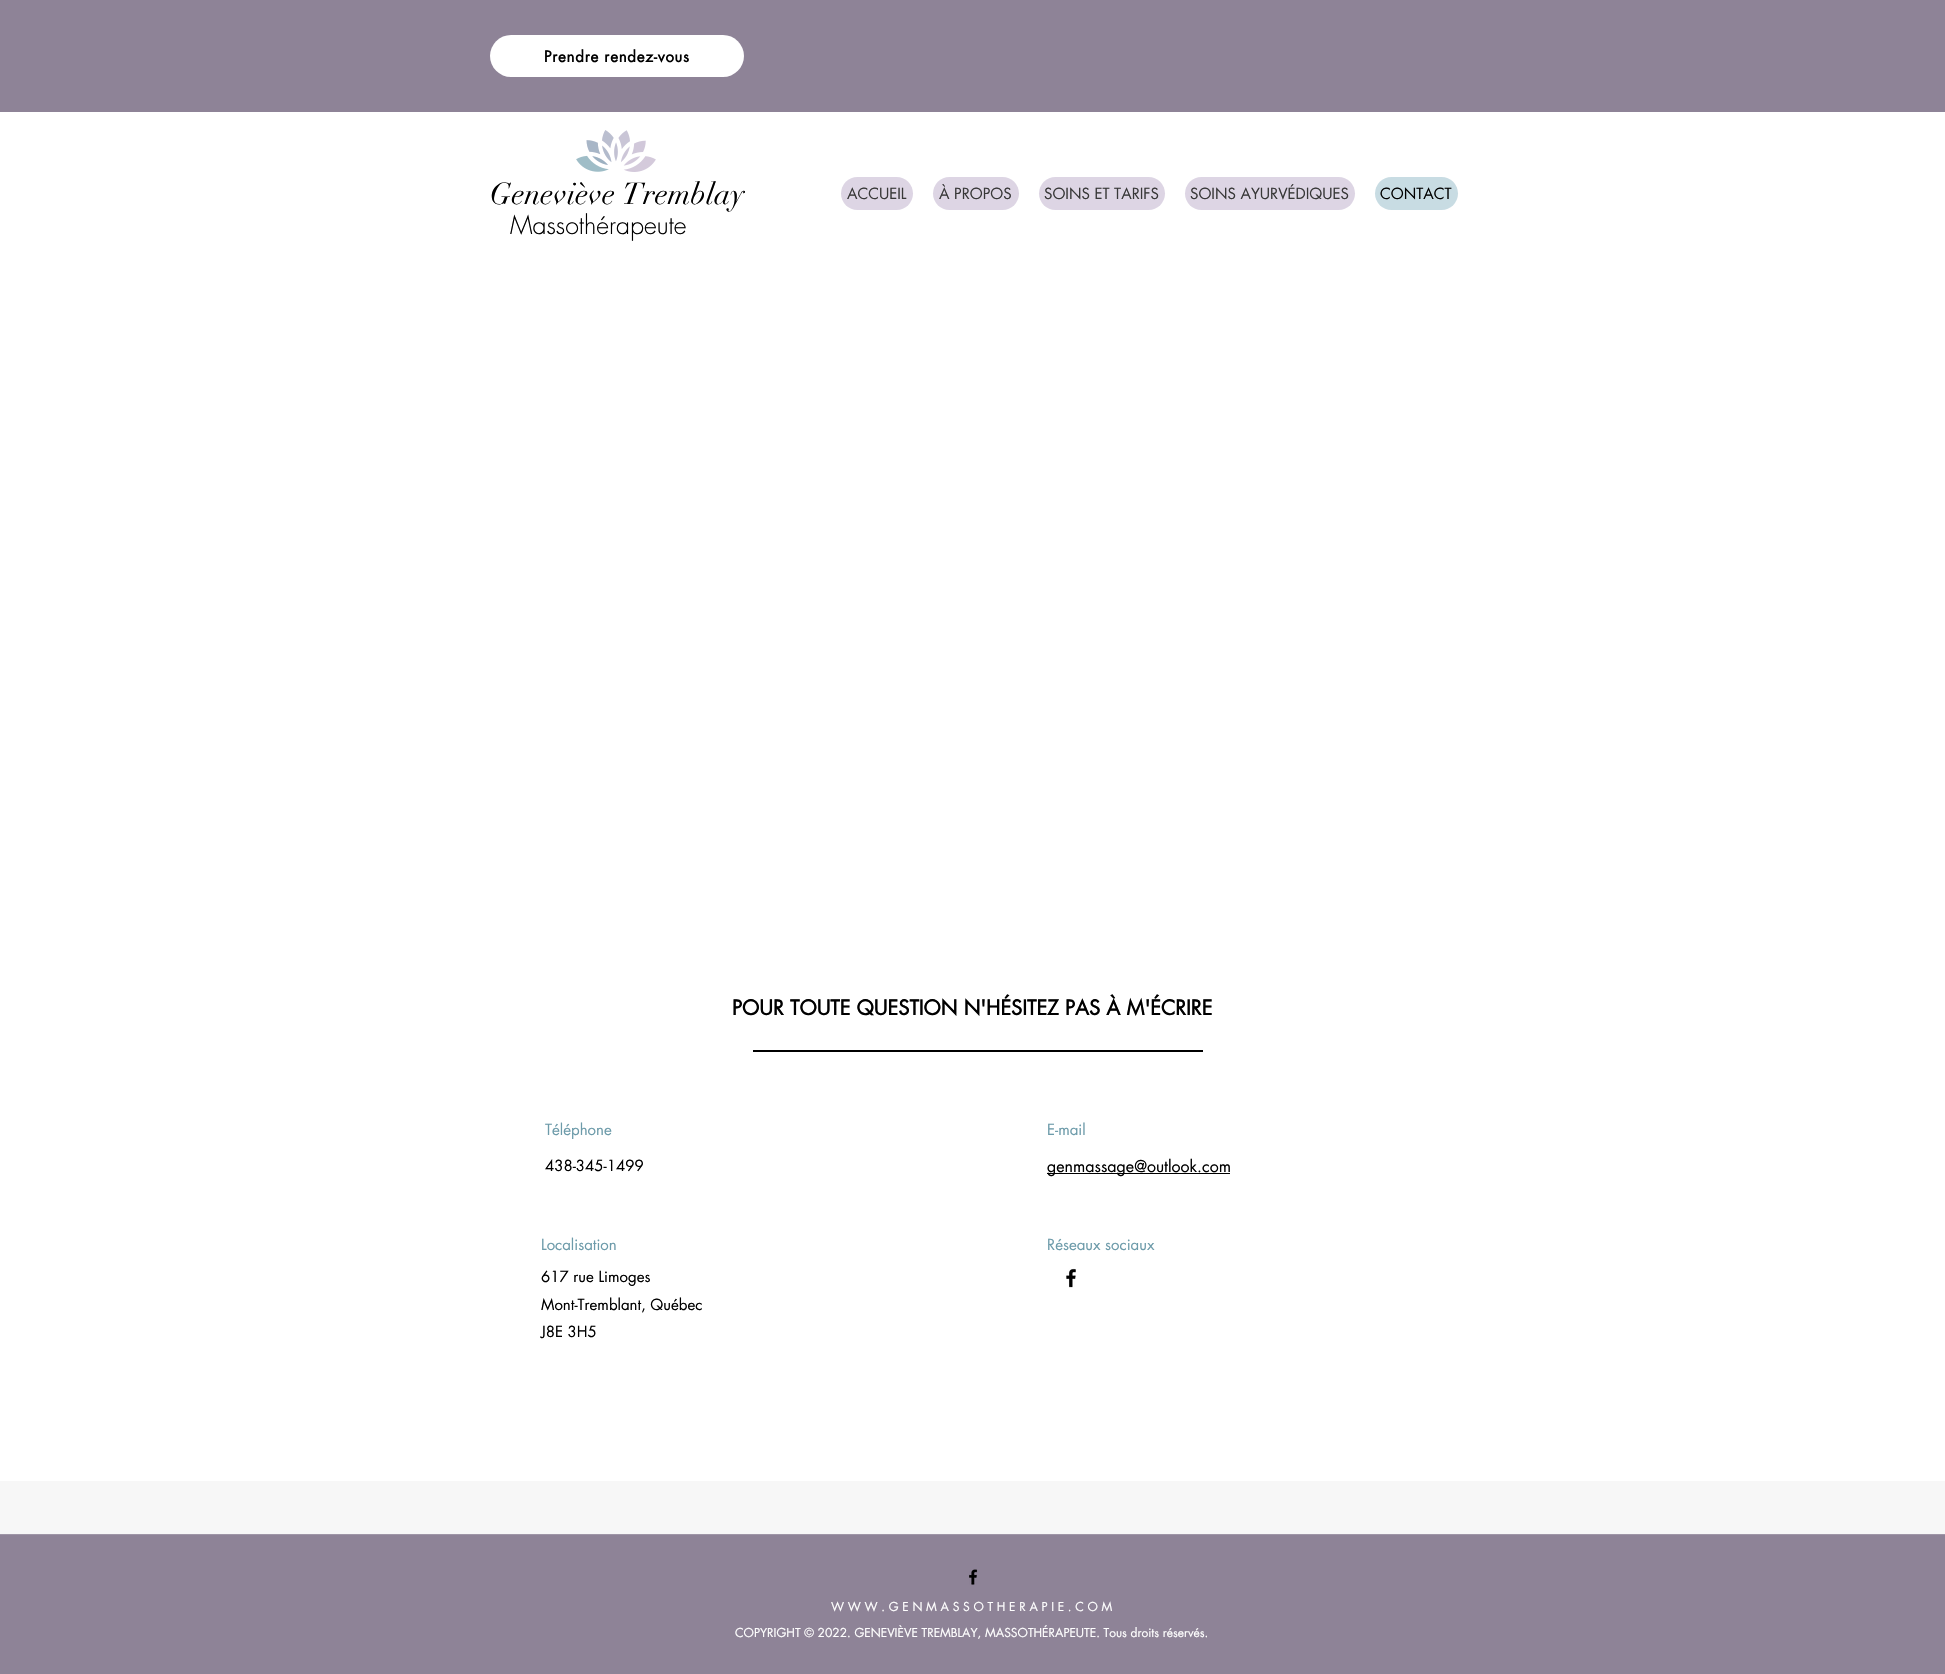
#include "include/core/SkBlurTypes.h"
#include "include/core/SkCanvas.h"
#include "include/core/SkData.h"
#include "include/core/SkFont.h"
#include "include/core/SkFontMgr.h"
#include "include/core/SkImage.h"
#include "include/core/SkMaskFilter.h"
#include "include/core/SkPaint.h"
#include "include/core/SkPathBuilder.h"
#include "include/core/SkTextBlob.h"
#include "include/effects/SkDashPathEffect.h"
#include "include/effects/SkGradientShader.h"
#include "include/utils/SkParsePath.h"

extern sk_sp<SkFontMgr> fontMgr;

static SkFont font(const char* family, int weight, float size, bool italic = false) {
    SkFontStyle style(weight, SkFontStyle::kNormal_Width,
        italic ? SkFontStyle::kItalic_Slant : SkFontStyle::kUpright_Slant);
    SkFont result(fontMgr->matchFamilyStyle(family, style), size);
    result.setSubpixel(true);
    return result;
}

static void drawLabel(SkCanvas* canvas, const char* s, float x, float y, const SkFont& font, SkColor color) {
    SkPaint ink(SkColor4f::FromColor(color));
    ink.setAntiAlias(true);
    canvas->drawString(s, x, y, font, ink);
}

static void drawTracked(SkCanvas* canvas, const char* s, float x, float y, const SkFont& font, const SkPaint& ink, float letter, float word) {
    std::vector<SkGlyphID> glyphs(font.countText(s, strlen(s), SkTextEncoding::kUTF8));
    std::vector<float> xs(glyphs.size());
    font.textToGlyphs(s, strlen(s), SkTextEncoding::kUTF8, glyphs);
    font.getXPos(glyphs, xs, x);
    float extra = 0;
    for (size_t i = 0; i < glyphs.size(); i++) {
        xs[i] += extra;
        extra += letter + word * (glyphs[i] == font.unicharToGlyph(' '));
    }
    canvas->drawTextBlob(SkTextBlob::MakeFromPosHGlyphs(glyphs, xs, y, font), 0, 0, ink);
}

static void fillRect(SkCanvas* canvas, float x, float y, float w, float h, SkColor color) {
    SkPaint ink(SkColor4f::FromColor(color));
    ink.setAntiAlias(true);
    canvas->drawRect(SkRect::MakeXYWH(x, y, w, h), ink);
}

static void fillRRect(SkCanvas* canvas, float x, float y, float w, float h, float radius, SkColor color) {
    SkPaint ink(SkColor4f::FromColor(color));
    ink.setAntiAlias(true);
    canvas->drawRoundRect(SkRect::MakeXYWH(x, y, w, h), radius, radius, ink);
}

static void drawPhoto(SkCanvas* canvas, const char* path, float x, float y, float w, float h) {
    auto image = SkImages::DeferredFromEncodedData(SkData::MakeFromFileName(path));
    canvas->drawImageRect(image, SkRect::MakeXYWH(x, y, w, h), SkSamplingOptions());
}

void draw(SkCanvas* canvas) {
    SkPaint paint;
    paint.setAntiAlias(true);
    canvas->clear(0xFFFFFFFF);
    fillRect(canvas, 0, 0, 1945, 112, 0xFF8E8397);
    fillRRect(canvas, 490, 35, 254, 42, 21, 0xFFFFFFFF);
    SkFont font1 = font("futura", 700, 15);
    paint.setColor(0xFF000000);
    drawTracked(canvas, "Prendre rendez-vous", 544, 62, font1, paint, 0.75f, 0);
    drawPhoto(canvas, "assets/img1.png", 576, 130, 80, 42);
    SkFont font2 = font("didot", 400, 30);
    drawLabel(canvas, "Geneviève Tremblay", 490, 204, font2, 0xFF000000);
    fillRRect(canvas, 841, 177, 72, 33, 16.5f, 0xFFDDD5E4);
    SkFont font3 = font("futura", 400, 15);
    drawLabel(canvas, "ACCUEIL", 847, 199, font3, 0xFF383838);
    fillRRect(canvas, 933, 177, 86, 33, 16.5f, 0xFFDDD5E4);
    drawLabel(canvas, "À PROPOS", 939, 199, font3, 0xFF383838);
    fillRRect(canvas, 1039, 177, 126, 33, 16.5f, 0xFFDDD5E4);
    drawLabel(canvas, "SOINS ET TARIFS", 1044, 199, font3, 0xFF383838);
    fillRRect(canvas, 1185, 177, 170, 33, 16.5f, 0xFFDDD5E4);
    drawLabel(canvas, "SOINS AYURVÉDIQUES", 1190, 199, font3, 0xFF383838);
    fillRRect(canvas, 1375, 177, 83, 33, 16.5f, 0xFFC8DCE3);
    drawLabel(canvas, "CONTACT", 1380, 199, font3, 0xFF000000);
    SkFont font4 = font("futura", 300, 25);
    drawLabel(canvas, "Massothérapeute", 510, 234, font4, 0xFF000000);
    SkFont font5 = font("futura", 700, 20);
    drawLabel(canvas, "POUR TOUTE QUESTION N'HÉSITEZ PAS À M'ÉCRIRE", 732, 1015, font5, 0xFF000000);
    fillRect(canvas, 753, 1050, 450, 2, 0xFF000000);
    drawLabel(canvas, "Téléphone", 545, 1135, font3, 0xFF6D9BAA);
    drawLabel(canvas, "E-mail", 1047, 1135, font3, 0xFF6D9BAA);
    drawLabel(canvas, "438-345-1499", 545, 1171, font3, 0xFF000000);
    fillRect(canvas, 1047, 1173, 183, 1, 0xFF000000);
    SkFont font6 = font("futura", 400, 16);
    drawLabel(canvas, "genmassage@outlook.com", 1047, 1172, font6, 0xFF000000);
    drawLabel(canvas, "Localisation", 541, 1250, font3, 0xFF6D9BAA);
    drawLabel(canvas, "Réseaux sociaux", 1047, 1250, font3, 0xFF6D9BAA);
    drawLabel(canvas, "617 rue Limoges", 541, 1282, font3, 0xFF000000);
    drawLabel(canvas, "Mont-Tremblant, Québec", 541, 1310, font3, 0xFF000000);
    drawLabel(canvas, "J8E 3H5", 541, 1337, font3, 0xFF000000);
    drawPhoto(canvas, "assets/img2.png", 1066, 1268, 10, 20);
    fillRect(canvas, 0, 1481, 1945, 53, 0xFFF7F7F7);
    fillRect(canvas, 0, 1535, 1945, 139, 0xFF8E8397);
    fillRect(canvas, 0, 1534, 1945, 1, 0xFF9F96A7);
    drawPhoto(canvas, "assets/img3.png", 969, 1569, 9, 16);
    SkFont font7 = font("futura", 400, 12);
    drawLabel(canvas, "W W W . G E N M A S S O T H E R A P I E . C O M", 831, 1611, font7, 0xFFFFFFFF);
    drawLabel(canvas, "COPYRIGHT © 2022. GENEVIÈVE TREMBLAY, MASSOTHÉRAPEUTE. Tous droits réservés.", 735, 1637, font7, 0xFFFFFFFF);
}
